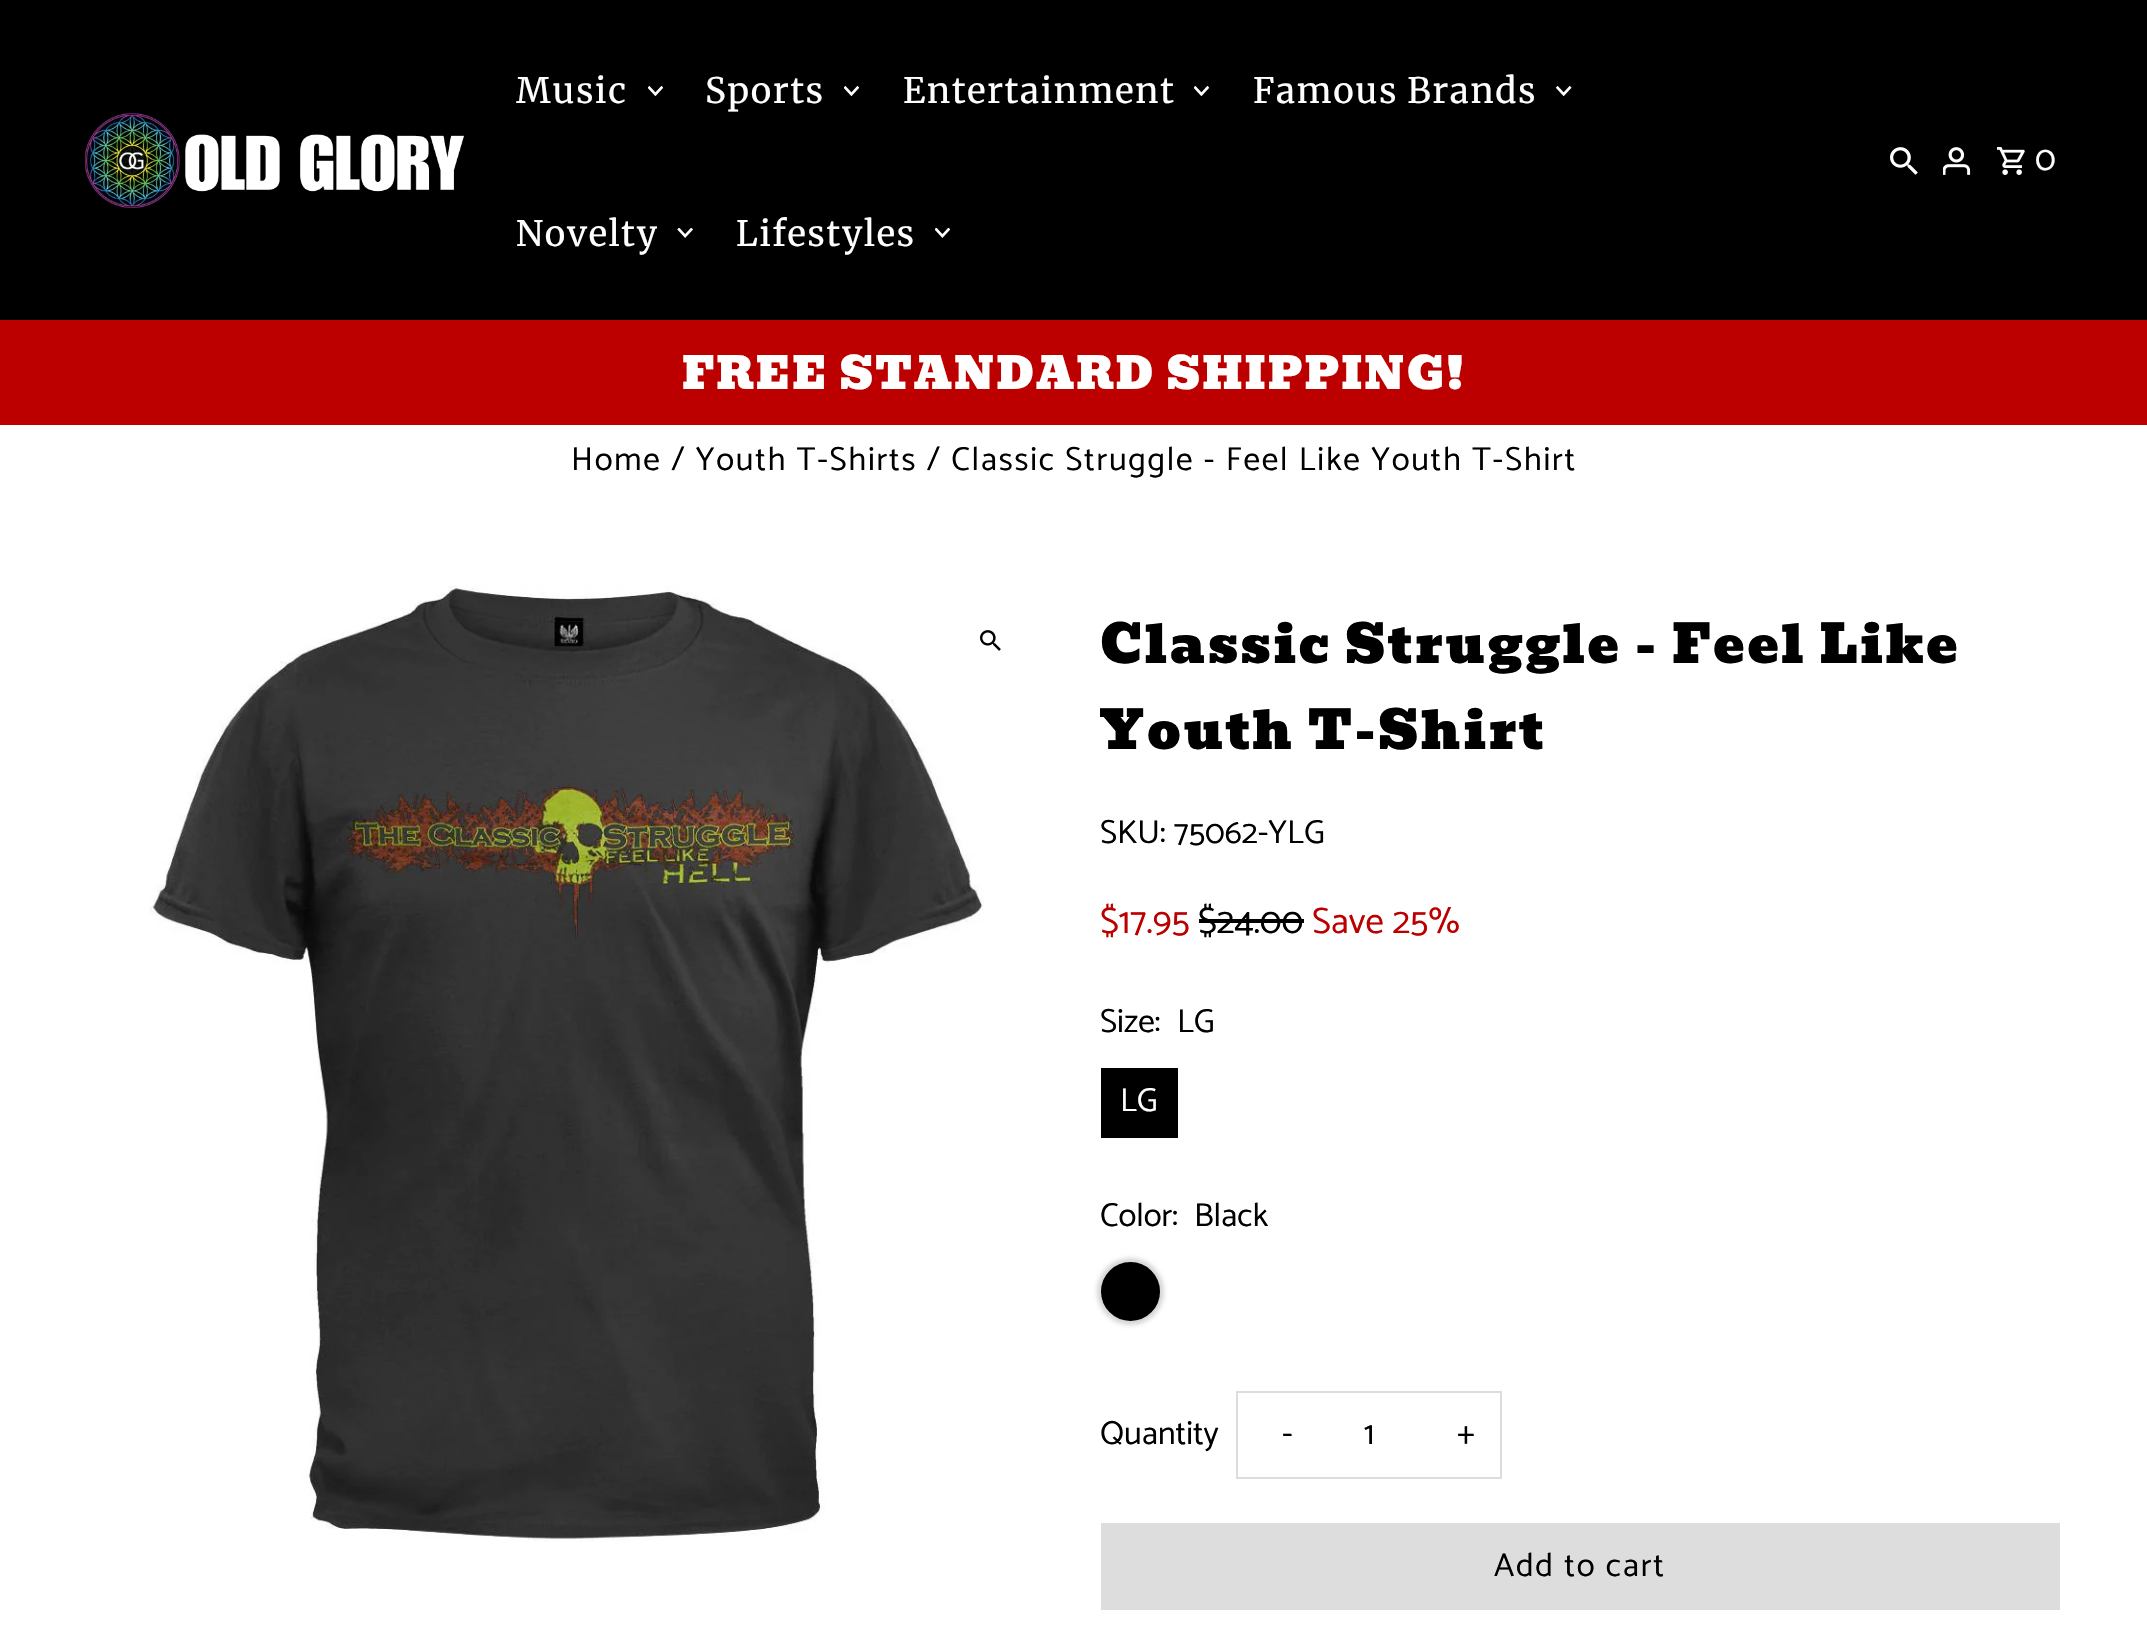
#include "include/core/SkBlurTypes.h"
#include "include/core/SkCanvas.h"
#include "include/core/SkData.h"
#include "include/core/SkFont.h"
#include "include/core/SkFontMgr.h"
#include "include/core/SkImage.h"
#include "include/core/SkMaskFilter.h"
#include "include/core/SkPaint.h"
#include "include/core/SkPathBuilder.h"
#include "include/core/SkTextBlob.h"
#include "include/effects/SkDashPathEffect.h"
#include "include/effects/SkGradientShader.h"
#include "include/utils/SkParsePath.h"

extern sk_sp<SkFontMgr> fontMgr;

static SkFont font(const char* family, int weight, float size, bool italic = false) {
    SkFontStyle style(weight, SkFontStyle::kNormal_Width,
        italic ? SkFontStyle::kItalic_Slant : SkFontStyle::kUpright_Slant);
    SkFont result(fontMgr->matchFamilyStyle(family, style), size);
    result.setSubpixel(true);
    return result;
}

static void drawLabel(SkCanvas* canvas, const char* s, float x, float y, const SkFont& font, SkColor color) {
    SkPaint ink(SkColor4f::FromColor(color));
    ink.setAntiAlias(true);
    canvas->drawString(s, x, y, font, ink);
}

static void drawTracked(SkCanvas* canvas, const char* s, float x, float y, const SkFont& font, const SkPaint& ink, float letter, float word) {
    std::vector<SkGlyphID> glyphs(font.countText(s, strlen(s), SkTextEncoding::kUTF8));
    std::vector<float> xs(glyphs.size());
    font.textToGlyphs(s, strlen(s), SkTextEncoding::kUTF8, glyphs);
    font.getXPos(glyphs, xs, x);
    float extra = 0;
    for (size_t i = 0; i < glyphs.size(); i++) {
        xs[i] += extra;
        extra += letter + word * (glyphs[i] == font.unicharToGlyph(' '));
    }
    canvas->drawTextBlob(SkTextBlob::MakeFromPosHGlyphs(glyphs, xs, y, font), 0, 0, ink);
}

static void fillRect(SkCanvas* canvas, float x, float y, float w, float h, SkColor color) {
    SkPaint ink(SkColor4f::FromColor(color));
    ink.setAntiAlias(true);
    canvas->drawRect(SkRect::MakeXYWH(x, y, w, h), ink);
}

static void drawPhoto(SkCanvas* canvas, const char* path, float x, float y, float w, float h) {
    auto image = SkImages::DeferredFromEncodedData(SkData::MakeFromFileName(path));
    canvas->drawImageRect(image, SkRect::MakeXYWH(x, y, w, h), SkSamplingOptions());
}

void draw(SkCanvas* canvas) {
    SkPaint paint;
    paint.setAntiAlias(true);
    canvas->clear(0xFFFFFFFF);
    fillRect(canvas, 0, 0, 2147, 320, 0xFF000000);
    drawPhoto(canvas, "assets/img1.png", 84, 113, 381, 95);
    SkFont font1 = font("Merriweather", 400, 35);
    paint.setColor(0xFFFFFFFF);
    drawTracked(canvas, "Music", 516, 103, font1, paint, 1.75f, 0);
    drawPhoto(canvas, "assets/img2.png", 648, 86, 15, 10);
    drawTracked(canvas, "Sports", 705, 103, font1, paint, 1.75f, 0);
    drawPhoto(canvas, "assets/img2.png", 844, 86, 15, 10);
    drawTracked(canvas, "Entertainment", 903, 103, font1, paint, 1.75f, 0);
    drawPhoto(canvas, "assets/img2.png", 1194, 86, 15, 10);
    drawTracked(canvas, "Famous Brands", 1253, 103, font1, paint, 1.75f, -1);
    drawPhoto(canvas, "assets/img3.png", 1556, 86, 16, 10);
    drawTracked(canvas, "Novelty", 516, 246, font1, paint, 1.75f, 0);
    drawPhoto(canvas, "assets/img4.png", 677, 228, 16, 10);
    drawTracked(canvas, "Lifestyles", 736, 246, font1, paint, 1.75f, 0);
    drawPhoto(canvas, "assets/img5.png", 935, 228, 15, 10);
    drawPhoto(canvas, "assets/img6.png", 1890, 147, 28, 28);
    drawPhoto(canvas, "assets/img7.png", 1943, 147, 28, 28);
    drawPhoto(canvas, "assets/img8.png", 1997, 147, 28, 28);
    SkFont font2 = font("Catamaran", 400, 35);
    drawTracked(canvas, "0", 2035, 170, font2, paint, 1.75f, 0);
    fillRect(canvas, 0, 320, 2147, 105, 0xFFBC0000);
    SkFont font3 = font("Bevan", 400, 43.75f);
    drawTracked(canvas, "FREE STANDARD SHIPPING!", 682, 389, font3, paint, 2.2f, 0);
    SkFont font4 = font("Catamaran", 400, 33.25f);
    paint.setColor(0xFF000000);
    drawTracked(canvas, "Home / Youth T-Shirts / Classic Struggle - Feel Like Youth T-Shirt", 571, 470, font4, paint, 1.75f, 0);
    drawPhoto(canvas, "assets/img9.png", 149, 585, 835, 957);
    drawPhoto(canvas, "assets/img10.png", 980, 630, 21, 21);
    SkFont font5 = font("Bevan", 400, 52.5f);
    drawTracked(canvas, "Classic Struggle - Feel Like", 1100, 663, font5, paint, 2.6f, 0);
    drawTracked(canvas, "Youth T-Shirt", 1100, 749, font5, paint, 2.6f, 0);
    drawLabel(canvas, "SKU:", 1100, 843, font4, 0xFF000000);
    drawLabel(canvas, "75062-YLG", 1174, 843, font4, 0xFF000000);
    SkFont font6 = font("Catamaran", 400, 36.75f);
    drawLabel(canvas, "$17.95", 1100, 933, font6, 0xFFBC0000);
    drawLabel(canvas, "$24.00", 1198, 933, font6, 0xFF000000);
    fillRect(canvas, 1199, 919, 105, 4, 0xFF000000);
    drawLabel(canvas, "Save 25%", 1312, 933, font6, 0xFFBC0000);
    drawLabel(canvas, "Size:", 1100, 1032, font4, 0xFF000000);
    drawLabel(canvas, "LG", 1177, 1032, font4, 0xFF000000);
    fillRect(canvas, 1101, 1068, 77, 70, 0xFF000000);
    drawLabel(canvas, "LG", 1120, 1111, font4, 0xFFFFFFFF);
    drawLabel(canvas, "Color:", 1100, 1226, font4, 0xFF000000);
    drawLabel(canvas, "Black", 1194, 1226, font4, 0xFF000000);
    paint.setColor(0xFFD6D6D6);
    paint.setMaskFilter(SkMaskFilter::MakeBlur(kNormal_SkBlurStyle, 2));
    canvas->drawRoundRect(SkRect::MakeXYWH(1097, 1258, 67, 67), 33.5f, 33.5f, paint);
    paint.setMaskFilter(nullptr);
    paint.setColor(0xFF000000);
    canvas->drawCircle(1130.5f, 1291.5f, 28.5f, paint);
    paint.setStroke(true);
    paint.setStrokeWidth(2);
    canvas->drawCircle(1130.5f, 1291.5f, 28.5f, paint);
    drawLabel(canvas, "Quantity", 1100, 1444, font4, 0xFF000000);
    paint.setColor(0xFFDDDDDD);
    canvas->drawRect(SkRect::MakeXYWH(1237, 1392, 264, 86), paint);
    paint.setStroke(false);
    paint.setColor(0xFF000000);
    drawTracked(canvas, "-", 1282, 1444, font4, paint, 1.75f, 0);
    drawLabel(canvas, "1", 1364, 1444, font4, 0xFF000000);
    drawTracked(canvas, "+", 1457, 1444, font4, paint, 1.75f, 0);
    fillRect(canvas, 1101, 1523, 959, 87, 0xFFDDDDDD);
    drawTracked(canvas, "Add to cart", 1494, 1576, font4, paint, 1.75f, 0);
}
